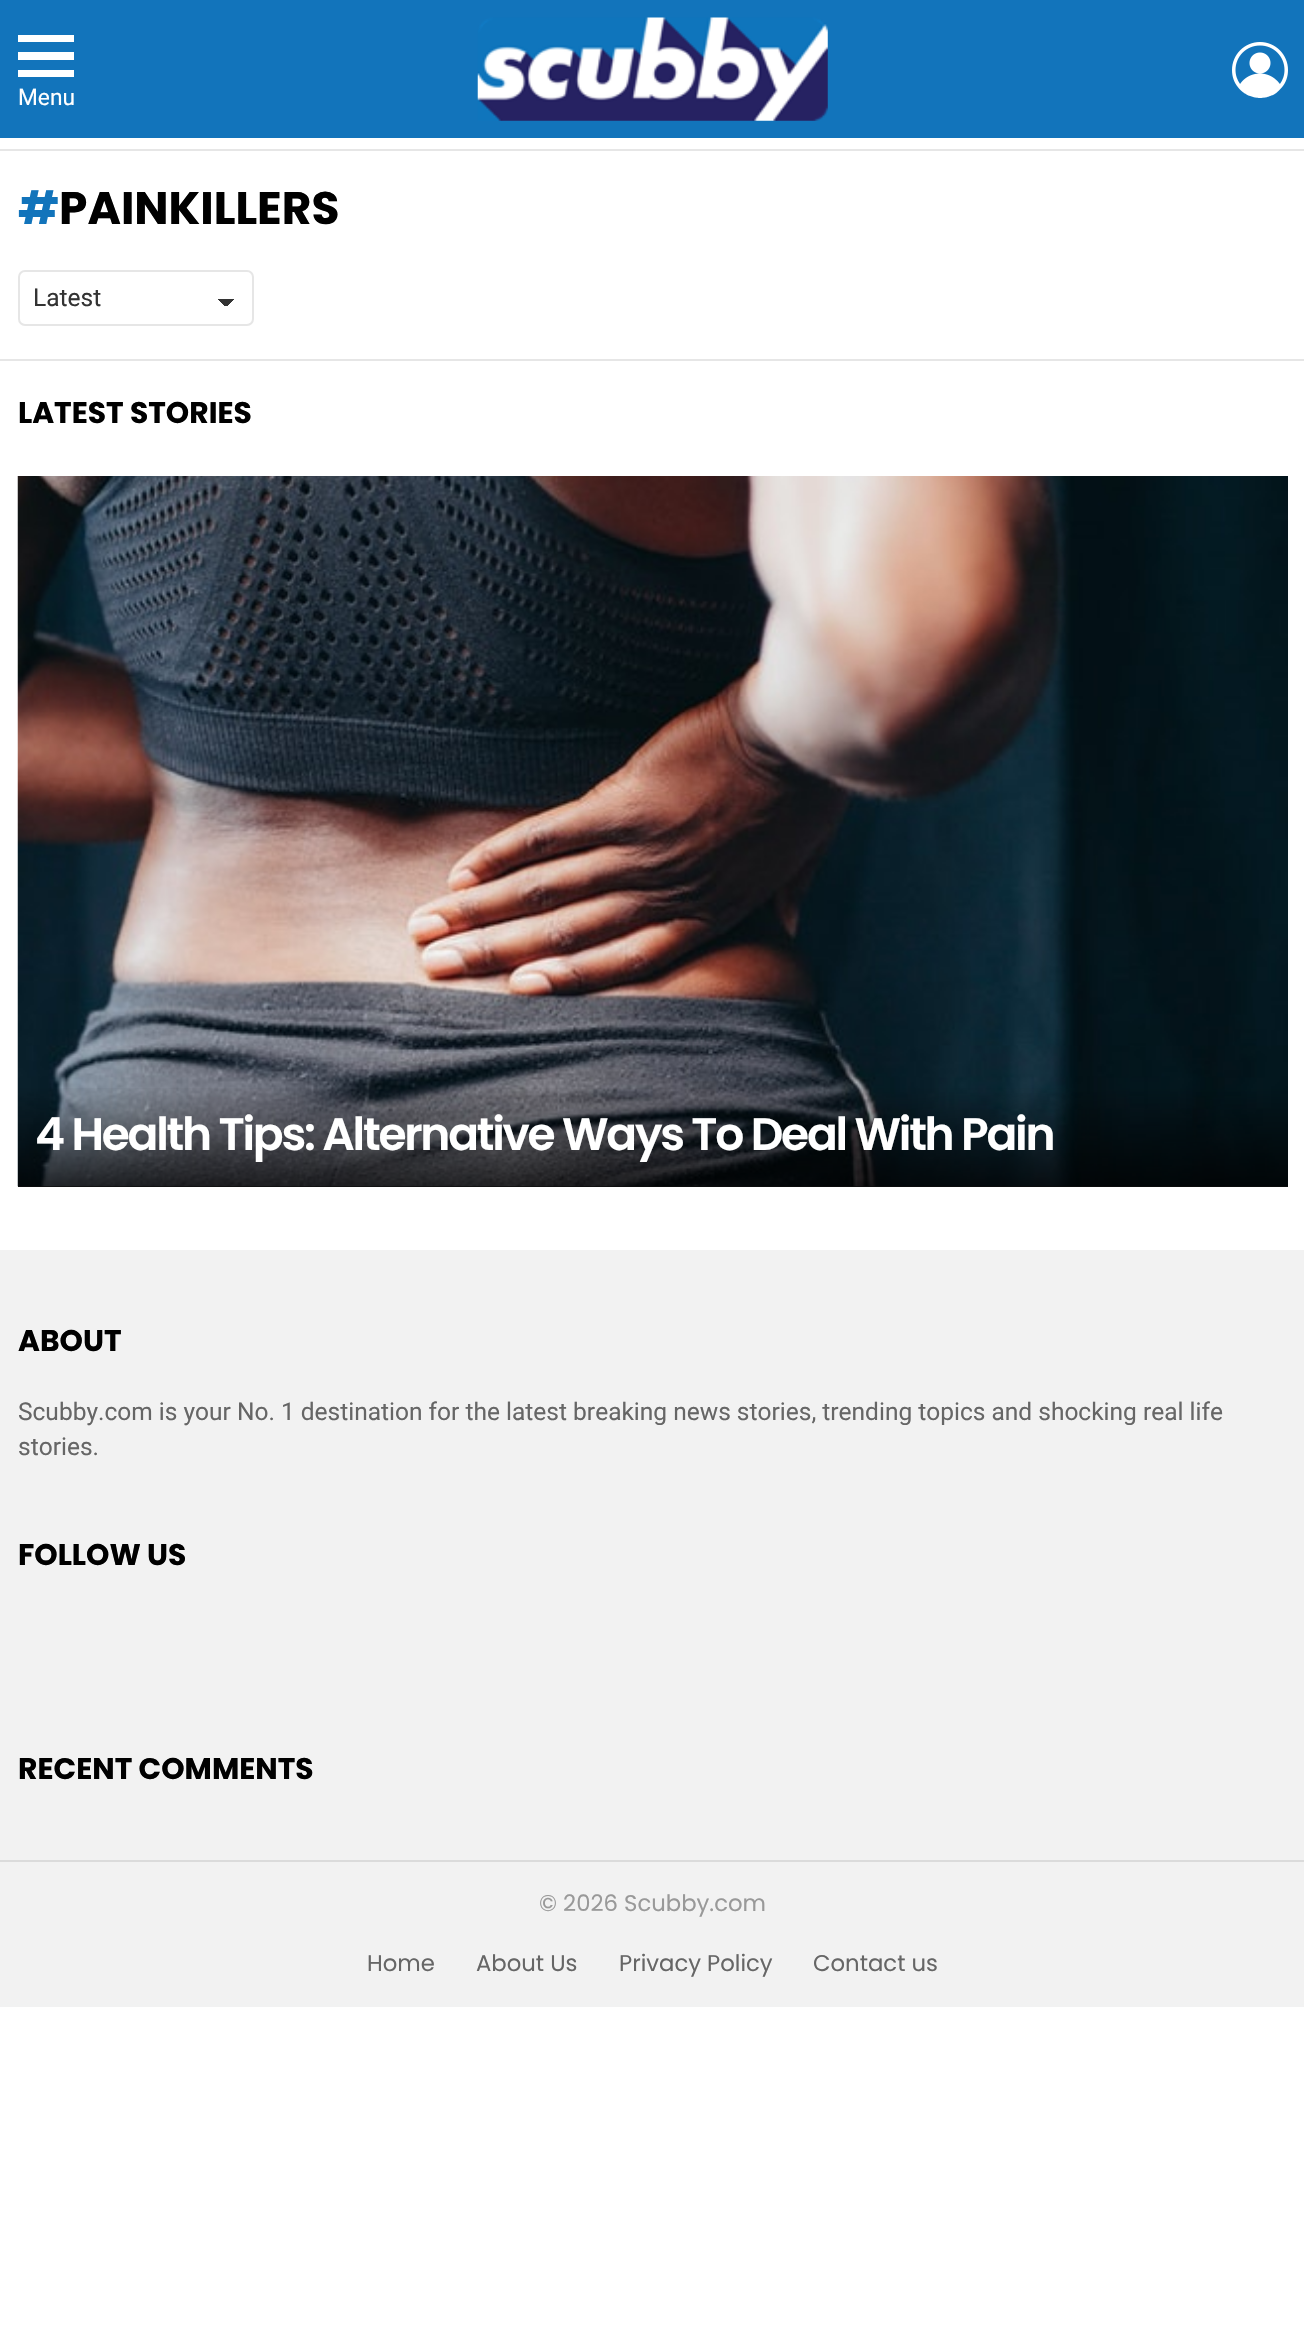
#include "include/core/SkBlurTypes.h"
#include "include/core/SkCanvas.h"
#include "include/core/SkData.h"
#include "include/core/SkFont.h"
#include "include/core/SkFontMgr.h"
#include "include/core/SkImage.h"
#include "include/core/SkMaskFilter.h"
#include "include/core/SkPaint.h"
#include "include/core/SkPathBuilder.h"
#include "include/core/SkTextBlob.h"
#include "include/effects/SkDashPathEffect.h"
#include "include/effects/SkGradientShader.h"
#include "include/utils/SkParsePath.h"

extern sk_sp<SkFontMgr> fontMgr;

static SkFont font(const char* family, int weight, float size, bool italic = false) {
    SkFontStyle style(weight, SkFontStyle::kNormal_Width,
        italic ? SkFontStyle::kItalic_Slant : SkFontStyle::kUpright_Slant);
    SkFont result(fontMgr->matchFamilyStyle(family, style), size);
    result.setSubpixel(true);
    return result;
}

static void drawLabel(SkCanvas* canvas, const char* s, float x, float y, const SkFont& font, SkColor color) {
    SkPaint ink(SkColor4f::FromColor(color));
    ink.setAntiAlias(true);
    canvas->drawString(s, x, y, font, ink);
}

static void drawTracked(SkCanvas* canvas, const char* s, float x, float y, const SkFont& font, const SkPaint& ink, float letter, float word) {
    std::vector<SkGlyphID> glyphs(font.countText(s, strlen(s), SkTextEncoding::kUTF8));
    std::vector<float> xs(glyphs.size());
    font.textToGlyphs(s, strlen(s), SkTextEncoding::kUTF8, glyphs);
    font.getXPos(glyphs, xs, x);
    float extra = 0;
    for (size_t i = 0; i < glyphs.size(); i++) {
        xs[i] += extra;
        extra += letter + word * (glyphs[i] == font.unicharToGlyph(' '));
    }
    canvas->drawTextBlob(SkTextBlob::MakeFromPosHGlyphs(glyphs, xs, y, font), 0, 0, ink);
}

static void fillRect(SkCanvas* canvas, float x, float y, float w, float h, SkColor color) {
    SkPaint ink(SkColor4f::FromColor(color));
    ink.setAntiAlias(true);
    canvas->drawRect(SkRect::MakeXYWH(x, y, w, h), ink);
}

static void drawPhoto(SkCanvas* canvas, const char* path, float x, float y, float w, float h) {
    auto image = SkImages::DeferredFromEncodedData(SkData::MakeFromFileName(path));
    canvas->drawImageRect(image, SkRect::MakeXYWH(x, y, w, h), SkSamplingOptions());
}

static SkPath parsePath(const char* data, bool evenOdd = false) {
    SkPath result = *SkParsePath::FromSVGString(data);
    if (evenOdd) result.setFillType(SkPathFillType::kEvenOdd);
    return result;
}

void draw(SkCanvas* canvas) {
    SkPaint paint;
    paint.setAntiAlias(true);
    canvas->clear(0xFFFFFFFF);
    fillRect(canvas, 0, 0, 1304, 138, 0xFF1274BB);
    paint.setColor(0xFFFFFFFF);
    canvas->drawPath(parsePath("M18 35H74V42H18ZM18 52H74V60H18ZM18 70H74V77H18Z"), paint);
    SkFont font1 = font("Roboto", 400, 22.75f);
    drawLabel(canvas, "Menu", 18, 105, font1, 0xFFFFFFFF);
    drawPhoto(canvas, "assets/img1.png", 477, 17, 351, 104);
    drawPhoto(canvas, "assets/img2.png", 1232, 42, 56, 56);
    fillRect(canvas, 0, 149, 1304, 2, 0xFFE6E6E6);
    SkFont font2 = font("Poppins", 700, 45.5f);
    drawLabel(canvas, "#", 18, 224, font2, 0xFF1274BB);
    drawLabel(canvas, "PAINKILLERS", 59, 224, font2, 0xFF000000);
    {
        const SkColor colors[] = {0xFF333333, 0xFFFFFFFF};
        const float stops[] = {0.5f, 0.5f};
        const SkPoint ends[] = {{226, 299}, {234, 307}};
        paint.setShader(SkGradientShader::MakeLinear(ends, colors, stops, 2, SkTileMode::kClamp));
        paint.setAlpha(255);
    }
    canvas->drawRect(SkRect::MakeXYWH(226, 299, 9, 7), paint);
    {
        const SkColor colors[] = {0xFFFFFFFF, 0xFF333333};
        const float stops[] = {0.5f, 0.5f};
        const SkPoint ends[] = {{217, 307}, {225, 299}};
        paint.setShader(SkGradientShader::MakeLinear(ends, colors, stops, 2, SkTileMode::kClamp));
        paint.setAlpha(255);
    }
    canvas->drawRect(SkRect::MakeXYWH(217, 299, 9, 7), paint);
    paint.setStroke(true);
    paint.setStrokeWidth(2);
    paint.setShader(nullptr);
    paint.setColor(0xFFE6E6E6);
    canvas->drawRoundRect(SkRect::MakeXYWH(19, 271, 234, 54), 6, 6, paint);
    SkFont font3 = font("Roboto", 400, 24.5f);
    drawLabel(canvas, "Latest", 33, 306, font3, 0xFF333333);
    fillRect(canvas, 0, 359, 1304, 2, 0xFFE6E6E6);
    SkFont font4 = font("Poppins", 700, 29.75f);
    drawLabel(canvas, "LATEST STORIES", 18, 423, font4, 0xFF000000);
    fillRect(canvas, 18, 1186, 1270, 1, 0xFF333333);
    drawPhoto(canvas, "assets/img3.png", 17, 476, 1271, 711);
    paint.setStroke(false);
    {
        const SkColor colors[] = {0x00000000, 0xBF000000};
        const float stops[] = {0, 1};
        const SkPoint ends[] = {{653, 1085}, {653, 1187}};
        paint.setShader(SkGradientShader::MakeLinear(ends, colors, stops, 2, SkTileMode::kClamp));
        paint.setAlpha(255);
    }
    canvas->drawRect(SkRect::MakeXYWH(18, 1088, 1270, 99), paint);
    SkFont font5 = font("Poppins", 600, 45.5f);
    paint.setShader(nullptr);
    paint.setColor(0xFFFFFFFF);
    drawTracked(canvas, "4 Health Tips: Alternative Ways To Deal With Pain", 35, 1150, font5, paint, -2.25f, 0);
    fillRect(canvas, 0, 1250, 1304, 610, 0xFFF2F2F2);
    drawLabel(canvas, "ABOUT", 18, 1351, font4, 0xFF000000);
    drawLabel(canvas, "Scubby.com is your No. 1 destination for the latest breaking news stories, trending topics and shocking real life", 18, 1420, font3, 0xFF666666);
    drawLabel(canvas, "stories.", 18, 1455, font3, 0xFF666666);
    drawLabel(canvas, "FOLLOW US", 18, 1565, font4, 0xFF000000);
    drawLabel(canvas, "RECENT COMMENTS", 18, 1779, font4, 0xFF000000);
    fillRect(canvas, 0, 1860, 1304, 2, 0xFFDBDBDB);
    fillRect(canvas, 0, 1862, 1304, 145, 0xFFF2F2F2);
    SkFont font6 = font("Poppins", 400, 22.75f);
    drawLabel(canvas, "© 2026 Scubby.com", 539, 1911, font6, 0xFF999999);
    drawLabel(canvas, "Home", 367, 1971, font6, 0xFF666666);
    drawLabel(canvas, "About Us", 476, 1971, font6, 0xFF666666);
    drawLabel(canvas, "Privacy Policy", 619, 1971, font6, 0xFF666666);
    drawLabel(canvas, "Contact us", 813, 1971, font6, 0xFF666666);
}
